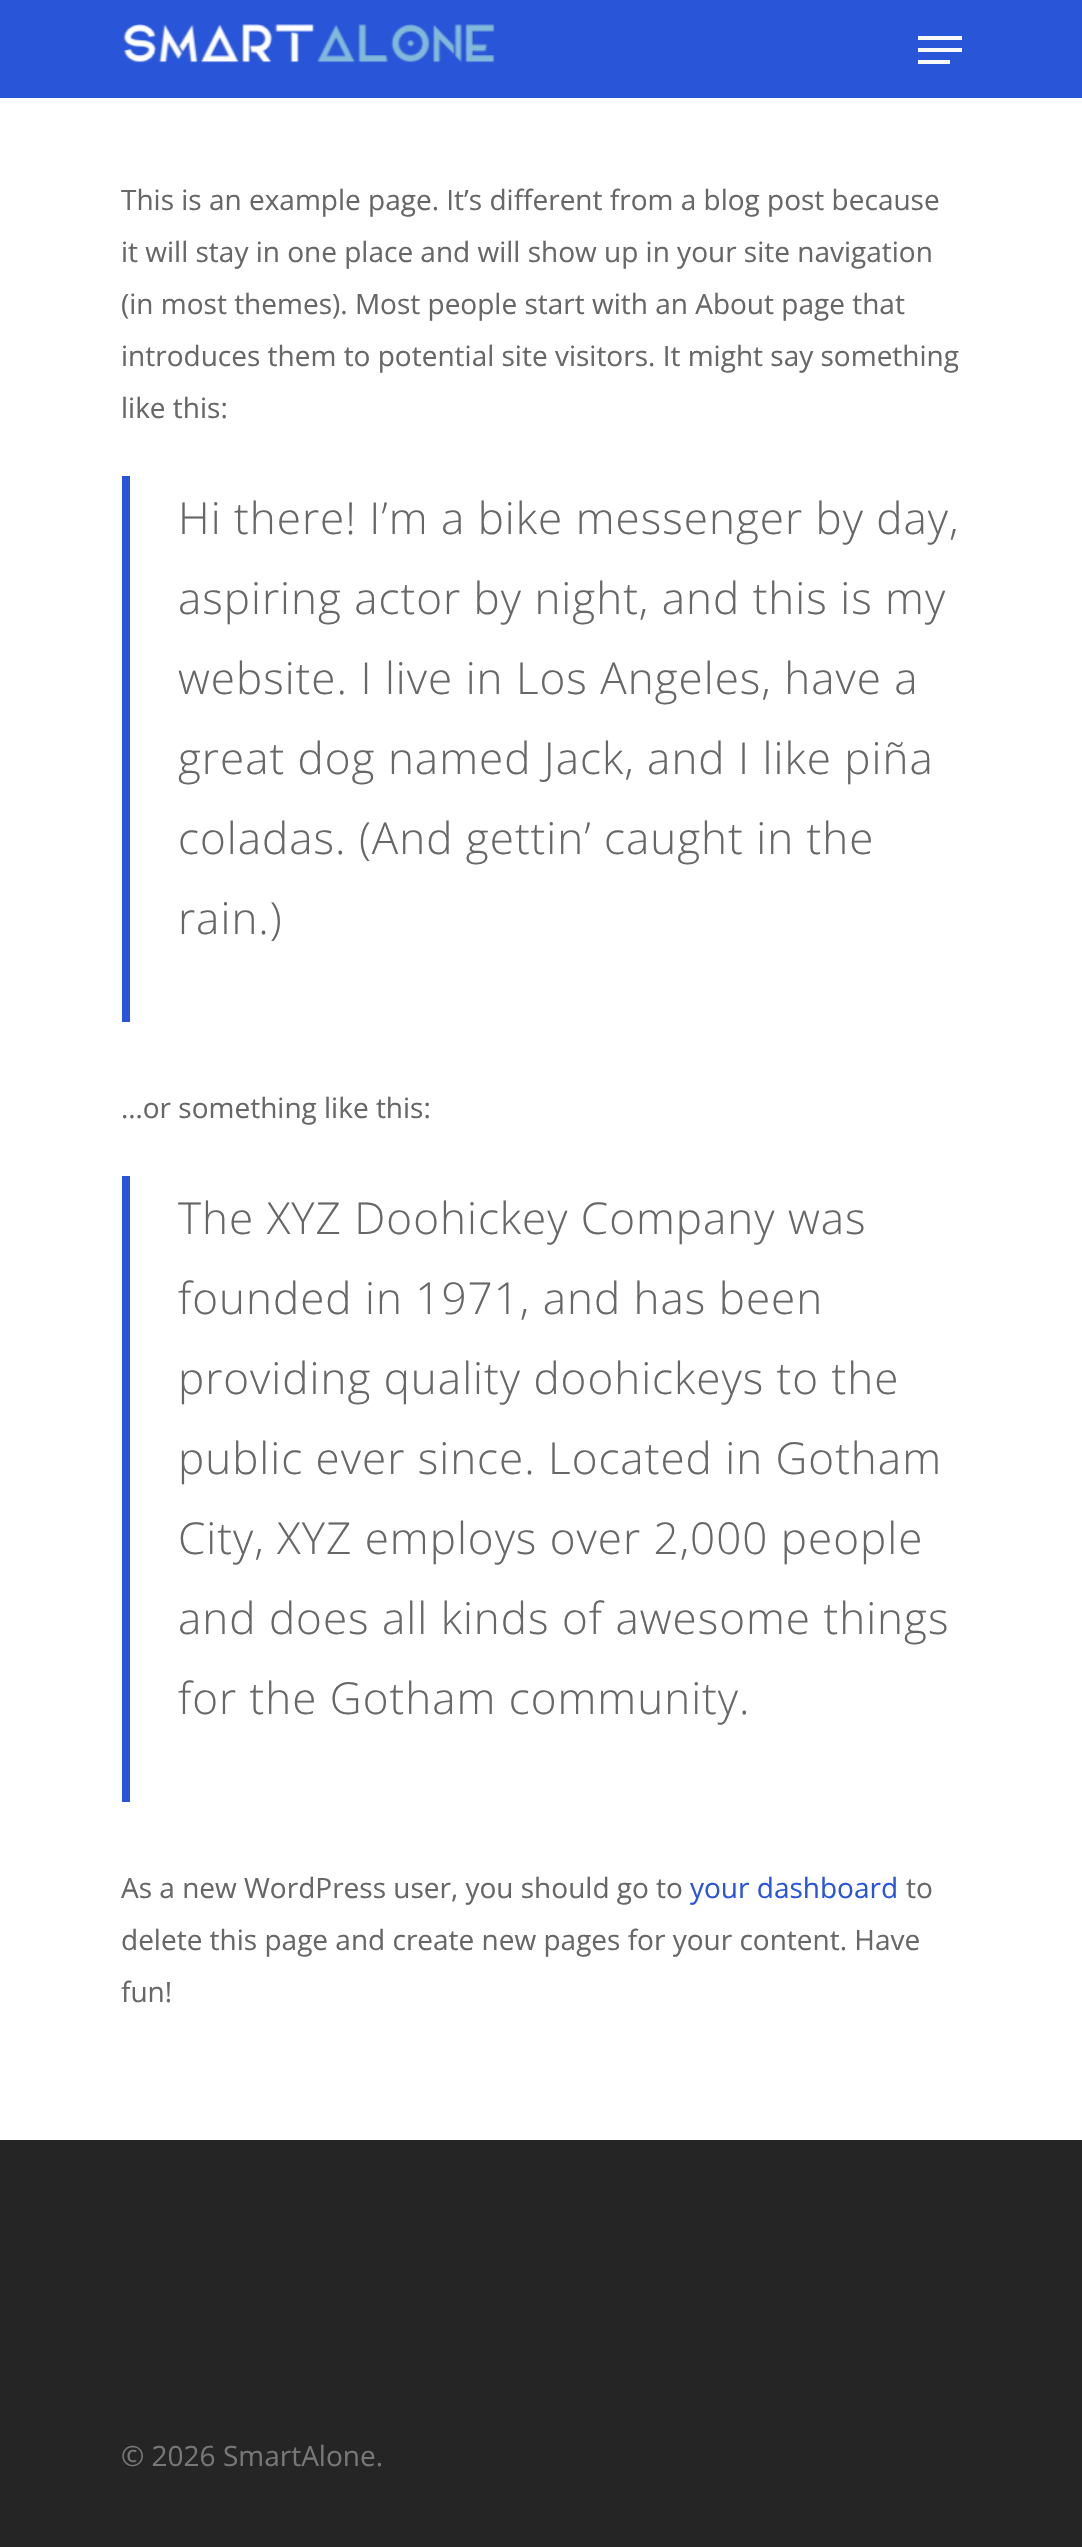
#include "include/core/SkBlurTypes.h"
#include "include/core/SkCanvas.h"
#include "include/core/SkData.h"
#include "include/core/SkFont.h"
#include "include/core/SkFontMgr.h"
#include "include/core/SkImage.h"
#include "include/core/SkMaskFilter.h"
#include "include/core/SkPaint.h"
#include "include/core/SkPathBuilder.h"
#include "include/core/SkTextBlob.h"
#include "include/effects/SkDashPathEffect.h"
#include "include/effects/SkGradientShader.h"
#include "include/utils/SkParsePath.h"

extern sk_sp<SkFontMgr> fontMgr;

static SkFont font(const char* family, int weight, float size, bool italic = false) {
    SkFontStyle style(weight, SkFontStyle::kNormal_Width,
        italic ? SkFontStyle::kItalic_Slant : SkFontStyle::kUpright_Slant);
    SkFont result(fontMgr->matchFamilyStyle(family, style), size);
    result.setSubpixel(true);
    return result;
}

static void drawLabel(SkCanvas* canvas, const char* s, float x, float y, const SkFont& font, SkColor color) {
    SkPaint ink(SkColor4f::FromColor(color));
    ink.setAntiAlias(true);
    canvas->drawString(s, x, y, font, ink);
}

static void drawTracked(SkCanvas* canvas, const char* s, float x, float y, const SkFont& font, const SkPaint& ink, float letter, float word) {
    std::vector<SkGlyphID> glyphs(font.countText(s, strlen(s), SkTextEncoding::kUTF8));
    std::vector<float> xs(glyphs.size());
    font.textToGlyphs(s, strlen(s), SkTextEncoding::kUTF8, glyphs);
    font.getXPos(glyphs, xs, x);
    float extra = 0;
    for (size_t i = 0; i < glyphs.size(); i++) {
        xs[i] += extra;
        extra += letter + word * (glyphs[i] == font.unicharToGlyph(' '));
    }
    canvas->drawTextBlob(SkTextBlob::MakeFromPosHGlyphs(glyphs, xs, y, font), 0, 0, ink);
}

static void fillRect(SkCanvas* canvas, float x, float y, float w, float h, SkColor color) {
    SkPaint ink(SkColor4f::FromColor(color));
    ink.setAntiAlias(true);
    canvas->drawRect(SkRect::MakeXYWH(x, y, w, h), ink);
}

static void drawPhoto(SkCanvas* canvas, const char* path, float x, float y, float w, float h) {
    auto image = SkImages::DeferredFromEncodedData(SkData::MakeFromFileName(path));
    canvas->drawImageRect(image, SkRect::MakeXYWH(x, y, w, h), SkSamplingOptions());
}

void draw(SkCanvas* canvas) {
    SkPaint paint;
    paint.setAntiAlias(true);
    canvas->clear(0xFFFFFFFF);
    fillRect(canvas, 0, 0, 1082, 98, 0xFF2955D9);
    drawPhoto(canvas, "assets/img1.png", 123, 24, 372, 39);
    fillRect(canvas, 918, 36, 44, 4, 0xFFF7F7F7);
    fillRect(canvas, 918, 60, 32, 4, 0xFFF7F7F7);
    fillRect(canvas, 918, 48, 44, 4, 0xFFF7F7F7);
    SkFont font1 = font("Open Sans", 400, 28);
    drawLabel(canvas, "This is an example page. It’s different from a blog post because", 121, 210, font1, 0xFF676767);
    drawLabel(canvas, "it will stay in one place and will show up in your site navigation", 121, 262, font1, 0xFF676767);
    drawLabel(canvas, "(in most themes). Most people start with an About page that", 121, 314, font1, 0xFF676767);
    drawLabel(canvas, "introduces them to potential site visitors. It might say something", 121, 366, font1, 0xFF676767);
    drawLabel(canvas, "like this:", 121, 418, font1, 0xFF676767);
    fillRect(canvas, 122, 476, 8, 546, 0xFF2955D9);
    SkFont font2 = font("Open Sans", 300, 44);
    paint.setColor(0xFF676767);
    drawTracked(canvas, "Hi there! I’m a bike messenger by day,", 178, 534, font2, paint, 1, 0);
    drawTracked(canvas, "aspiring actor by night, and this is my", 178, 614, font2, paint, 1, 0);
    drawTracked(canvas, "website. I live in Los Angeles, have a", 178, 694, font2, paint, 1, 0);
    drawTracked(canvas, "great dog named Jack, and I like piña", 178, 774, font2, paint, 1, 0);
    drawTracked(canvas, "coladas. (And gettin’ caught in the", 178, 854, font2, paint, 1, 0);
    drawTracked(canvas, "rain.)", 178, 934, font2, paint, 1, 0);
    drawLabel(canvas, "…or something like this:", 121, 1118, font1, 0xFF676767);
    fillRect(canvas, 122, 1176, 8, 626, 0xFF2955D9);
    drawTracked(canvas, "The XYZ Doohickey Company was", 178, 1234, font2, paint, 1, 0);
    drawTracked(canvas, "founded in 1971, and has been", 178, 1314, font2, paint, 1, 0);
    drawTracked(canvas, "providing quality doohickeys to the", 178, 1394, font2, paint, 1, 0);
    drawTracked(canvas, "public ever since. Located in Gotham", 178, 1474, font2, paint, 1, 0);
    drawTracked(canvas, "City, XYZ employs over 2,000 people", 178, 1554, font2, paint, 1, 0);
    drawTracked(canvas, "and does all kinds of awesome things", 178, 1634, font2, paint, 1, 0);
    drawTracked(canvas, "for the Gotham community.", 178, 1714, font2, paint, 1, 0);
    drawLabel(canvas, "As a new WordPress user, you should go to", 121, 1898, font1, 0xFF676767);
    drawLabel(canvas, "your dashboard", 690, 1898, font1, 0xFF2955D9);
    drawLabel(canvas, "to", 906, 1898, font1, 0xFF676767);
    drawLabel(canvas, "delete this page and create new pages for your content. Have", 121, 1950, font1, 0xFF676767);
    drawLabel(canvas, "fun!", 121, 2002, font1, 0xFF676767);
    fillRect(canvas, 0, 2140, 1082, 407, 0xFF252525);
    drawLabel(canvas, "© 2026 SmartAlone.", 121, 2466, font1, 0xFF777777);
}
